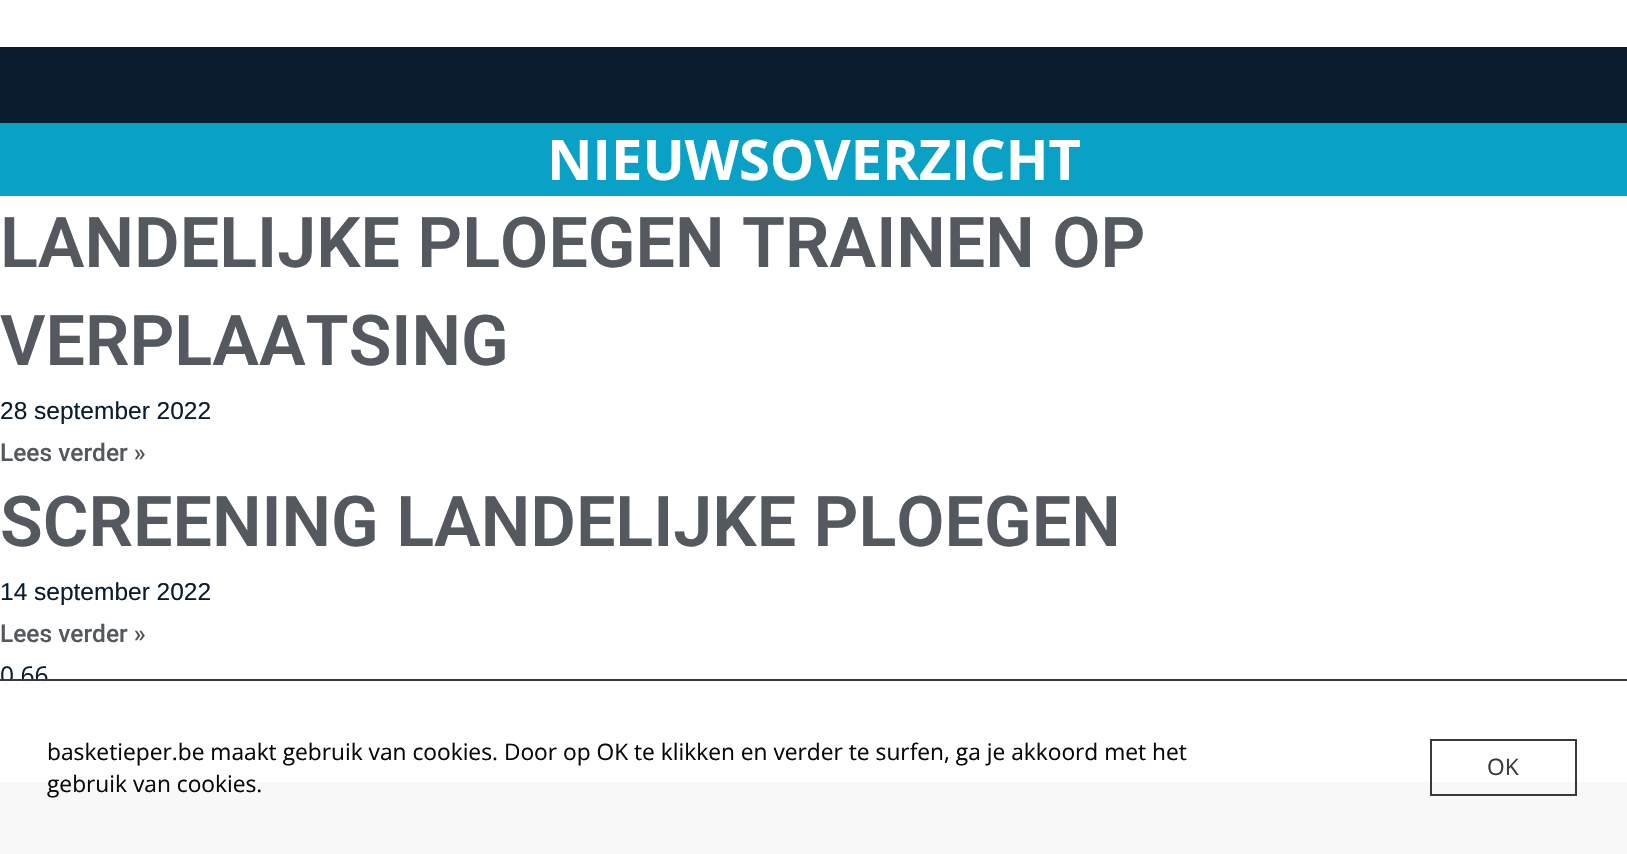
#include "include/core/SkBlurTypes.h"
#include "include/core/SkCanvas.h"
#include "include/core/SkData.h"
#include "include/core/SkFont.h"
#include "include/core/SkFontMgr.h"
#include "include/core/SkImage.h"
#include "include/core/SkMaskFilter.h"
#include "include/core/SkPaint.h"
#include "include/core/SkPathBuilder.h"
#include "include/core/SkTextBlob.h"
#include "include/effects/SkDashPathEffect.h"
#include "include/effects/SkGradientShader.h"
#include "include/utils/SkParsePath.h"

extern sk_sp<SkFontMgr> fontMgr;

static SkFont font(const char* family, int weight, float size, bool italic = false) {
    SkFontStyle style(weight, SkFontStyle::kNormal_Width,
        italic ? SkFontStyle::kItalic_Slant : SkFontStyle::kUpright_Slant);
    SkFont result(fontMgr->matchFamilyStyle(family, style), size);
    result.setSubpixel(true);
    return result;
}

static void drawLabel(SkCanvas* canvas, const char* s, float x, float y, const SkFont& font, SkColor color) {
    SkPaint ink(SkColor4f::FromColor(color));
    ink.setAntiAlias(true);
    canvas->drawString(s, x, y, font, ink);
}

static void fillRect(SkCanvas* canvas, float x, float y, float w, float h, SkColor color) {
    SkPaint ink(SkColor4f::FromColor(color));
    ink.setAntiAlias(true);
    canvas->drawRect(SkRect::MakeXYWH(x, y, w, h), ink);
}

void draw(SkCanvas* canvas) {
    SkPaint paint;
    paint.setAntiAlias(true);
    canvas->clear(0xFFFFFFFF);
    fillRect(canvas, 0, 47, 1627, 76, 0xFF0A1D2F);
    fillRect(canvas, 0, 123, 1627, 73, 0xFF0AA1C7);
    SkFont font1 = font("Open Sans", 700, 56);
    drawLabel(canvas, "NIEUWSOVERZICHT", 547, 180, font1, 0xFFFFFFFF);
    SkFont font2 = font("Roboto", 600, 70);
    drawLabel(canvas, "LANDELIJKE PLOEGEN TRAINEN OP", 0, 267, font2, 0xFF54595F);
    drawLabel(canvas, "VERPLAATSING", 0, 365, font2, 0xFF54595F);
    SkFont font3 = font("Liberation Sans", 400, 24.5f);
    drawLabel(canvas, "28 september 2022", 0, 419, font3, 0xFF0A1D2F);
    SkFont font4 = font("Roboto", 500, 24.5f);
    drawLabel(canvas, "Lees verder »", 0, 461, font4, 0xFF54595F);
    drawLabel(canvas, "SCREENING LANDELIJKE PLOEGEN", 0, 546, font2, 0xFF54595F);
    drawLabel(canvas, "14 september 2022", 0, 600, font3, 0xFF0A1D2F);
    drawLabel(canvas, "Lees verder »", 0, 642, font4, 0xFF54595F);
    SkFont font5 = font("Open Sans", 400, 24.5f);
    drawLabel(canvas, "0.66", 0, 684, font5, 0xFF0A1D2F);
    fillRect(canvas, 0, 782, 1627, 72, 0xFF0A1D2F);
    fillRect(canvas, 0, 679, 1627, 175, 0xF7FFFFFF);
    fillRect(canvas, 0, 679, 1627, 2, 0xF7333333);
    SkFont font6 = font("Open Sans", 400, 22.75f);
    drawLabel(canvas, "basketieper.be maakt gebruik van cookies. Door op OK te klikken en verder te surfen, ga je akkoord met het", 47, 760, font6, 0xFF080808);
    drawLabel(canvas, "gebruik van cookies.", 47, 792, font6, 0xFF080808);
    paint.setStroke(true);
    paint.setStrokeWidth(2);
    paint.setColor(0xF7333333);
    canvas->drawRect(SkRect::MakeXYWH(1431, 740, 145, 55), paint);
    drawLabel(canvas, "OK", 1487, 775, font6, 0xFF393939);
}
